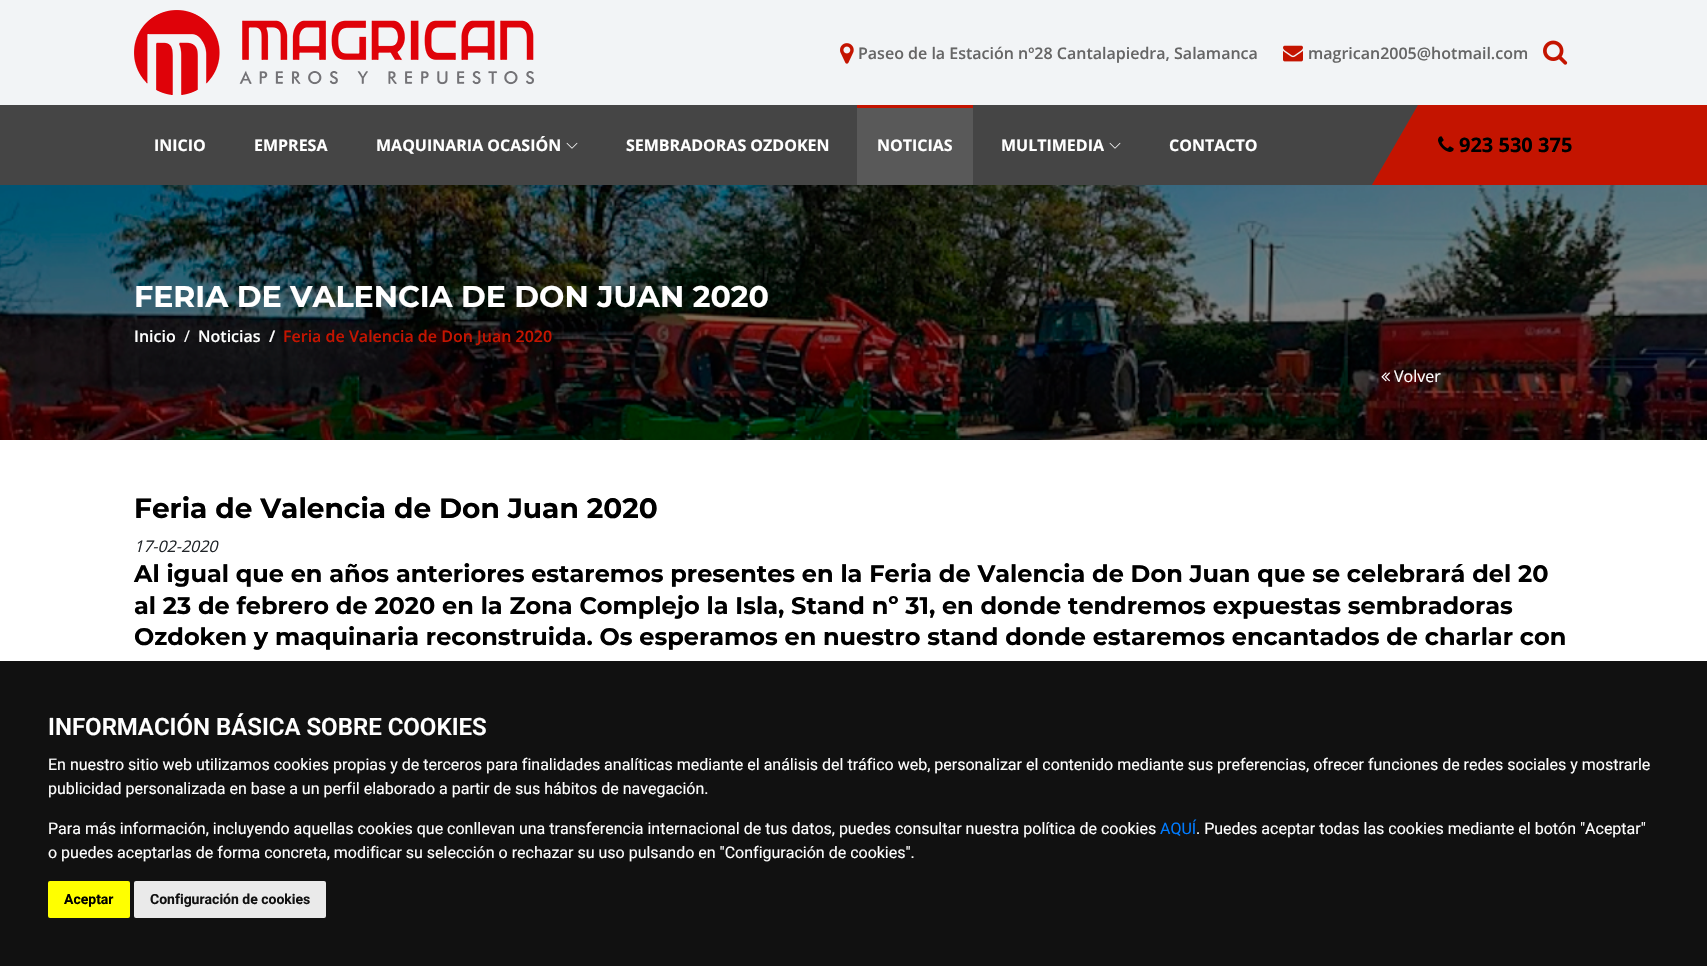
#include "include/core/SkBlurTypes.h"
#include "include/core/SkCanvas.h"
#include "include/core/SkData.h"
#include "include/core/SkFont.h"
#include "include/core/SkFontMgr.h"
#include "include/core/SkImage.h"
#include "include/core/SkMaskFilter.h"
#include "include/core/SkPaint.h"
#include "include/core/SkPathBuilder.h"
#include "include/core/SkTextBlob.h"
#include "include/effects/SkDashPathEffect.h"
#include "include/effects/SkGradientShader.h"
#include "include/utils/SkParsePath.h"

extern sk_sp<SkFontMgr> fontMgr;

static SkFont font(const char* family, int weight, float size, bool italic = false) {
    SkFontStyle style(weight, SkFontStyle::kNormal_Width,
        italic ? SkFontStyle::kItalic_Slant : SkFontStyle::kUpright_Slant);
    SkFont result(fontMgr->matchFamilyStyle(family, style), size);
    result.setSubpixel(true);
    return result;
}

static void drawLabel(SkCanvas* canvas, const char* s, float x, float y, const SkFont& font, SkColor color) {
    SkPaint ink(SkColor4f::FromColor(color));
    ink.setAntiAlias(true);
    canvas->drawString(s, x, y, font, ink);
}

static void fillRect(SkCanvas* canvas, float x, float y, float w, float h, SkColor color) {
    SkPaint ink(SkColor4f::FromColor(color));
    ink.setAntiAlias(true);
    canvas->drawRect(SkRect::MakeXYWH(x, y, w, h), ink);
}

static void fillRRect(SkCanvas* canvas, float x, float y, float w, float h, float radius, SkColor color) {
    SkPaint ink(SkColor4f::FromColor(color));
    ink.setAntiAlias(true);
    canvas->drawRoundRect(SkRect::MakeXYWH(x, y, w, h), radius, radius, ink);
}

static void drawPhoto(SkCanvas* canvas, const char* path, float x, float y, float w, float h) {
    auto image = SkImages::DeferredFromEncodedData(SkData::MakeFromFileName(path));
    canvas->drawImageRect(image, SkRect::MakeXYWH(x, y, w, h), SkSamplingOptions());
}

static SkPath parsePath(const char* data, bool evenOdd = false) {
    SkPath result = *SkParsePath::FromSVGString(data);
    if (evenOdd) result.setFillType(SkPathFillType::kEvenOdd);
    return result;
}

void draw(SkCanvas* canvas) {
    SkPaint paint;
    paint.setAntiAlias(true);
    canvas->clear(0xFFFFFFFF);
    fillRect(canvas, 0, 0, 1707, 105, 0xFFF2F4F6);
    drawPhoto(canvas, "assets/img1.png", 134, 10, 400, 85);
    drawPhoto(canvas, "assets/img2.png", 840, 43, 14, 21);
    SkFont font1 = font("Open Sans", 600, 16);
    drawLabel(canvas, "Paseo de la Estación nº28 Cantalapiedra, Salamanca", 858, 59, font1, 0xFF666666);
    drawPhoto(canvas, "assets/img3.png", 1283, 45, 20, 17);
    drawLabel(canvas, "magrican2005@hotmail.com", 1308, 59, font1, 0xFF666666);
    drawPhoto(canvas, "assets/img4.png", 1543, 40, 25, 25);
    fillRect(canvas, 1573, 105, 134, 80, 0xFFC41400);
    fillRect(canvas, 0, 105, 1418, 80, 0xFF454545);
    SkFont font2 = font("Open Sans", 700, 16);
    drawLabel(canvas, "INICIO", 154, 151, font2, 0xFFFFFFFF);
    drawLabel(canvas, "EMPRESA", 254, 151, font2, 0xFFFFFFFF);
    drawLabel(canvas, "MAQUINARIA OCASIÓN", 376, 151, font2, 0xFFFFFFFF);
    drawPhoto(canvas, "assets/img5.png", 566, 142, 12, 7);
    drawLabel(canvas, "SEMBRADORAS OZDOKEN", 626, 151, font2, 0xFFFFFFFF);
    fillRect(canvas, 857, 108, 116, 77, 0xFF595959);
    fillRect(canvas, 857, 105, 116, 3, 0xFFC41400);
    drawLabel(canvas, "NOTICIAS", 877, 151, font2, 0xFFFFFFFF);
    drawLabel(canvas, "MULTIMEDIA", 1001, 151, font2, 0xFFFFFFFF);
    drawPhoto(canvas, "assets/img5.png", 1109, 142, 12, 7);
    drawLabel(canvas, "CONTACTO", 1169, 151, font2, 0xFFFFFFFF);
    canvas->save();
    canvas->clipRect(SkRect::MakeXYWH(1368, 105, 205, 80));
    paint.setColor(0xFFC41400);
    canvas->drawPath(parsePath("M1422 98L1599 200L1519 339L1342 237Z"), paint);
    canvas->restore();
    fillRect(canvas, 1434, 105, 139, 80, 0xFFC41400);
    drawPhoto(canvas, "assets/img6.png", 1438, 136, 16, 16);
    SkFont font3 = font("Open Sans", 700, 20);
    drawLabel(canvas, "923 530 375", 1459, 152, font3, 0xFF000000);
    drawPhoto(canvas, "assets/img7.png", 0, 185, 1707, 255);
    SkFont font4 = font("Montserrat", 700, 30);
    drawLabel(canvas, "FERIA DE VALENCIA DE DON JUAN 2020", 134, 307, font4, 0xFFFFFFFF);
    drawLabel(canvas, "Inicio", 134, 342, font1, 0xFFFFFFFF);
    SkFont font5 = font("Open Sans", 400, 16);
    drawLabel(canvas, "/", 184, 342, font5, 0xFFFFFFFF);
    drawLabel(canvas, "Noticias", 198, 342, font1, 0xFFFFFFFF);
    drawLabel(canvas, "/", 269, 342, font1, 0xFFFFFFFF);
    drawLabel(canvas, "Feria de Valencia de Don Juan 2020", 283, 342, font1, 0xFFC41400);
    drawPhoto(canvas, "assets/img8.png", 1381, 372, 9, 10);
    drawLabel(canvas, "Volver", 1394, 382, font5, 0xFFFFFFFF);
    SkFont font6 = font("Montserrat", 700, 28);
    drawLabel(canvas, "Feria de Valencia de Don Juan 2020", 134, 518, font6, 0xFF000000);
    SkFont font7 = font("Open Sans", 400, 16, true);
    drawLabel(canvas, "17-02-2020", 134, 552, font7, 0xFF212529);
    SkFont font8 = font("Montserrat", 700, 24);
    drawLabel(canvas, "Al igual que en años anteriores estaremos presentes en la Feria de Valencia de Don Juan que se celebrará del 20", 134, 582, font8, 0xFF000000);
    drawLabel(canvas, "al 23 de febrero de 2020 en la Zona Complejo la Isla, Stand nº 31, en donde tendremos expuestas sembradoras", 134, 614, font8, 0xFF000000);
    drawLabel(canvas, "Ozdoken y maquinaria reconstruida. Os esperamos en nuestro stand donde estaremos encantados de charlar con", 134, 645, font8, 0xFF000000);
    fillRect(canvas, 0, 661, 1707, 305, 0xFF111111);
    SkFont font9 = font("Roboto", 600, 24);
    drawLabel(canvas, "INFORMACIÓN BÁSICA SOBRE COOKIES", 48, 735, font9, 0xFFFFFFFF);
    SkFont font10 = font("Roboto", 400, 16);
    drawLabel(canvas, "En nuestro sitio web utilizamos cookies propias y de terceros para finalidades analíticas mediante el análisis del tráfico web, personalizar el contenido mediante sus preferencias, ofrecer funciones de redes sociales y mostrarle", 48, 770, font10, 0xFFFFFFFF);
    drawLabel(canvas, "publicidad personalizada en base a un perfil elaborado a partir de sus hábitos de navegación.", 48, 794, font10, 0xFFFFFFFF);
    drawLabel(canvas, "Para más información, incluyendo aquellas cookies que conllevan una transferencia internacional de tus datos, puedes consultar nuestra política de cookies", 48, 834, font10, 0xFFFFFFFF);
    drawLabel(canvas, "AQUÍ", 1160, 834, font10, 0xFF007BFF);
    drawLabel(canvas, ". Puedes aceptar todas las cookies mediante el botón \"Aceptar\"", 1196, 834, font10, 0xFFFFFFFF);
    drawLabel(canvas, "o puedes aceptarlas de forma concreta, modificar su selección o rechazar su uso pulsando en \"Configuración de cookies\".", 48, 858, font10, 0xFFFFFFFF);
    fillRRect(canvas, 48, 881, 82, 37, 2, 0xFFFFFF00);
    SkFont font11 = font("Roboto", 700, 14);
    drawLabel(canvas, "Aceptar", 64, 904, font11, 0xFF000000);
    fillRRect(canvas, 134, 881, 192, 37, 2, 0xFFEAEAEA);
    drawLabel(canvas, "Configuración de cookies", 150, 904, font11, 0xFF111111);
}
